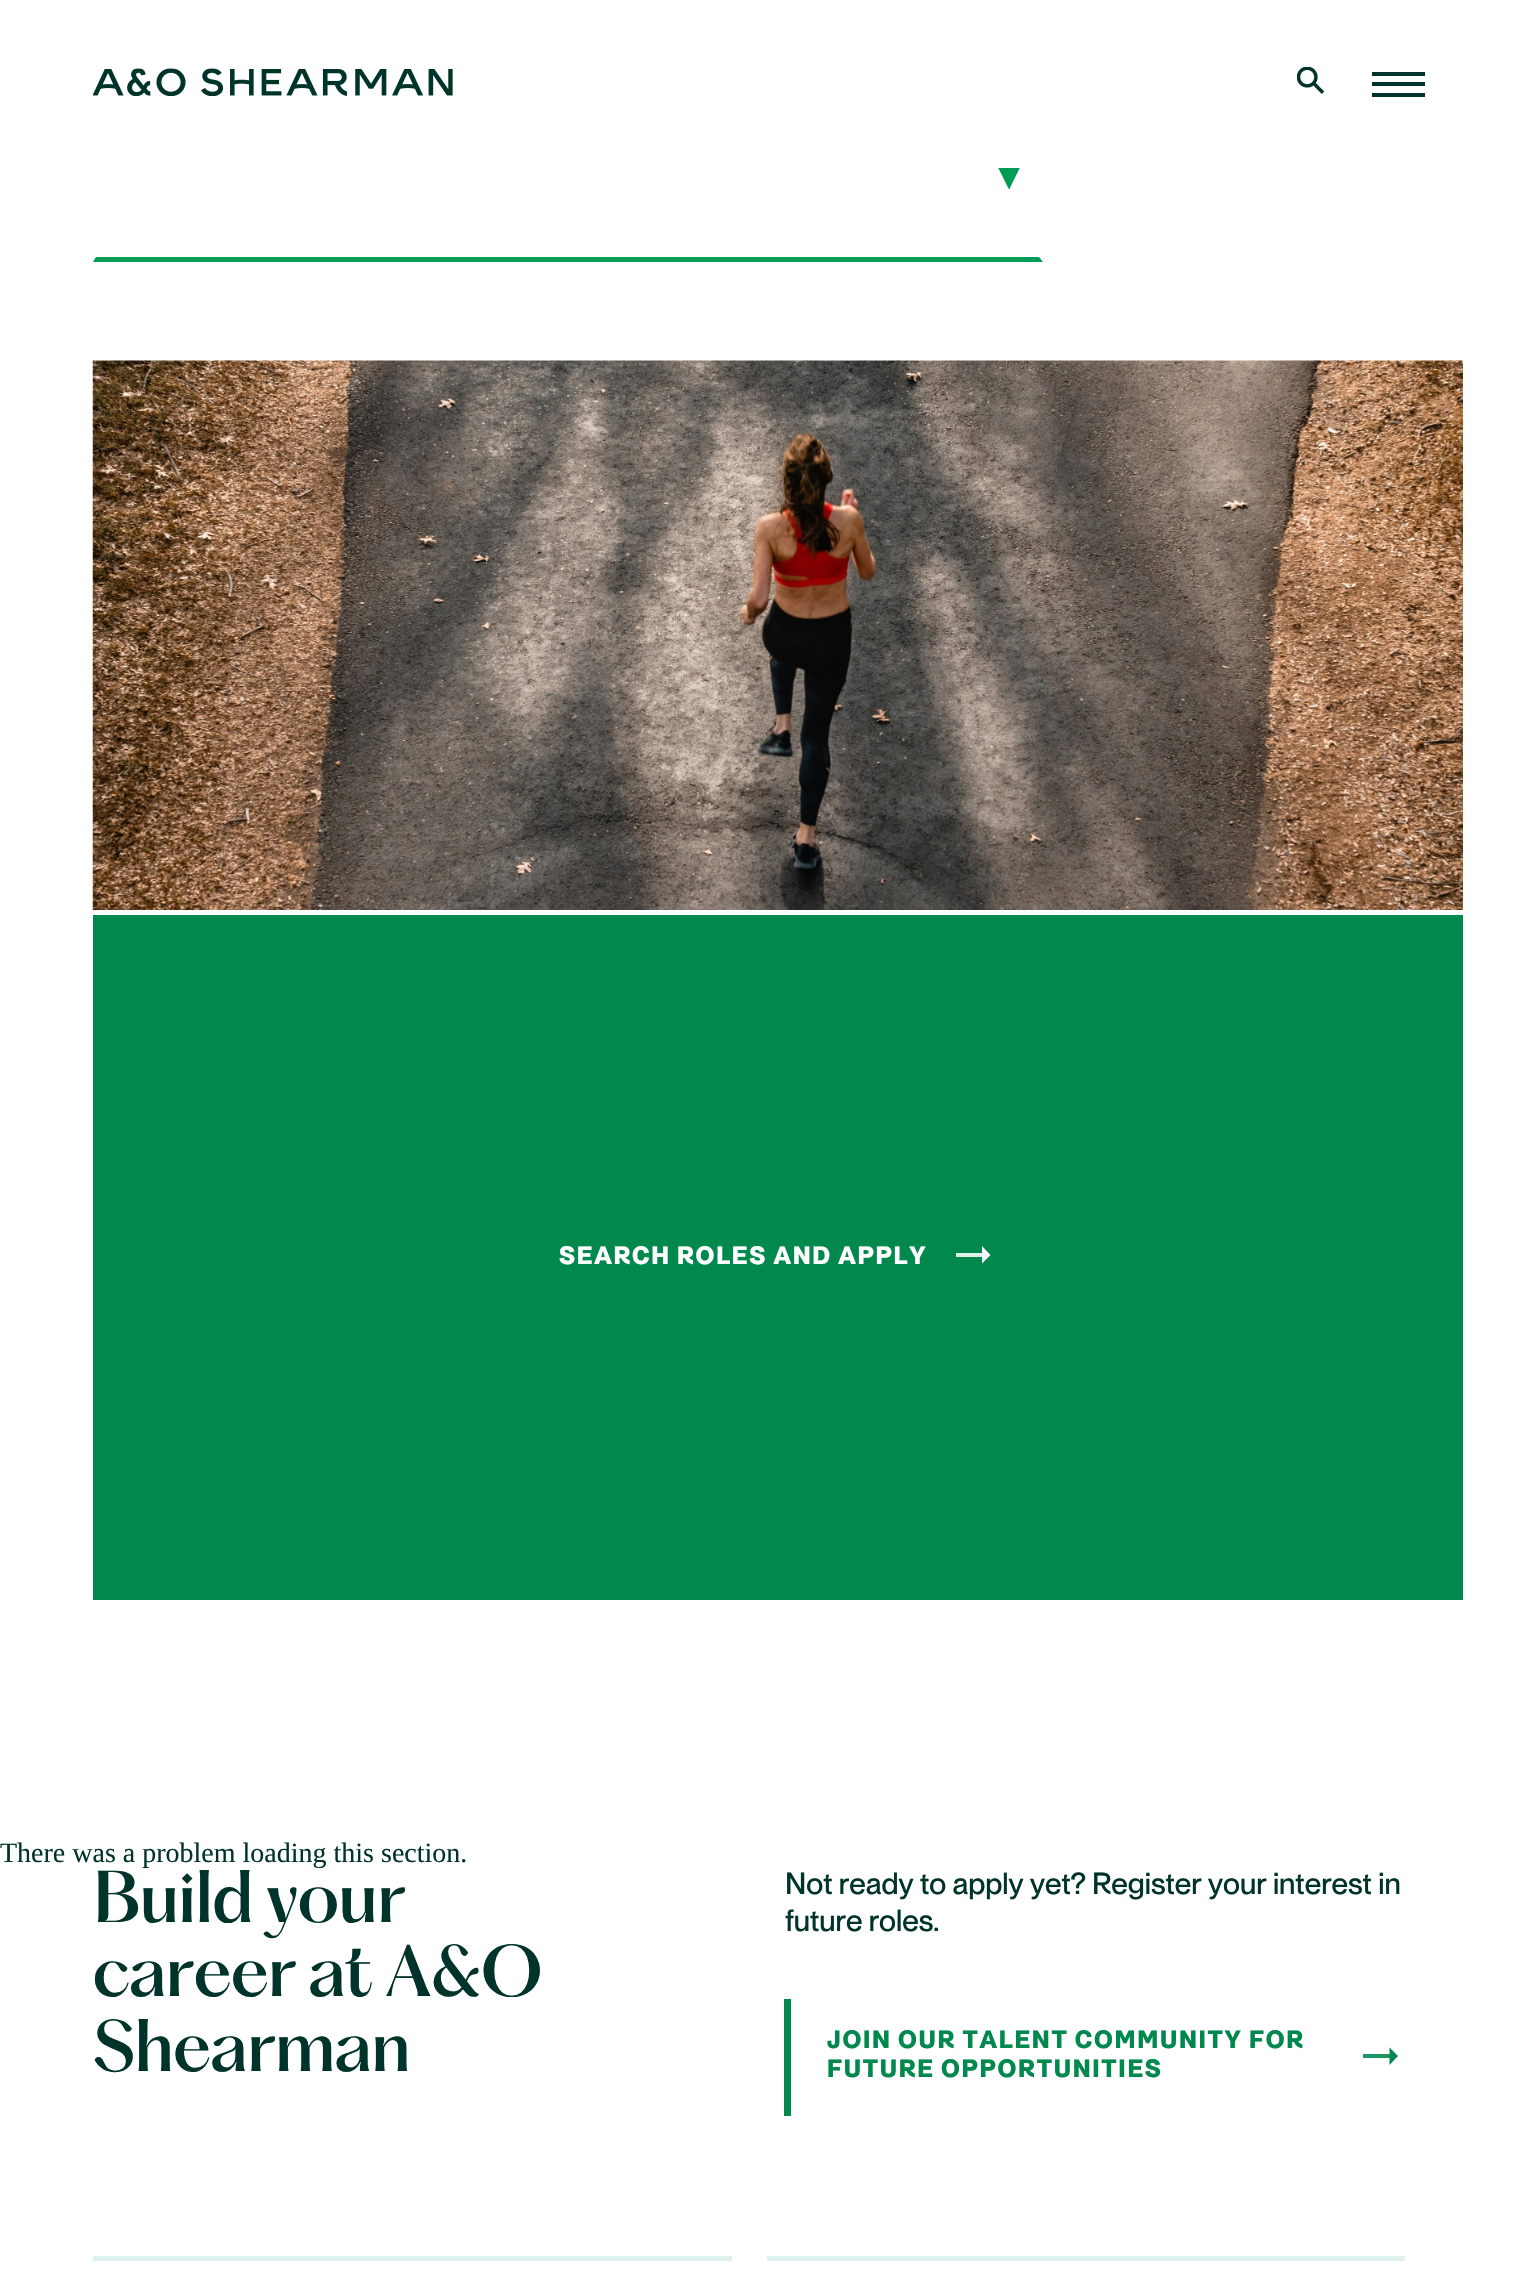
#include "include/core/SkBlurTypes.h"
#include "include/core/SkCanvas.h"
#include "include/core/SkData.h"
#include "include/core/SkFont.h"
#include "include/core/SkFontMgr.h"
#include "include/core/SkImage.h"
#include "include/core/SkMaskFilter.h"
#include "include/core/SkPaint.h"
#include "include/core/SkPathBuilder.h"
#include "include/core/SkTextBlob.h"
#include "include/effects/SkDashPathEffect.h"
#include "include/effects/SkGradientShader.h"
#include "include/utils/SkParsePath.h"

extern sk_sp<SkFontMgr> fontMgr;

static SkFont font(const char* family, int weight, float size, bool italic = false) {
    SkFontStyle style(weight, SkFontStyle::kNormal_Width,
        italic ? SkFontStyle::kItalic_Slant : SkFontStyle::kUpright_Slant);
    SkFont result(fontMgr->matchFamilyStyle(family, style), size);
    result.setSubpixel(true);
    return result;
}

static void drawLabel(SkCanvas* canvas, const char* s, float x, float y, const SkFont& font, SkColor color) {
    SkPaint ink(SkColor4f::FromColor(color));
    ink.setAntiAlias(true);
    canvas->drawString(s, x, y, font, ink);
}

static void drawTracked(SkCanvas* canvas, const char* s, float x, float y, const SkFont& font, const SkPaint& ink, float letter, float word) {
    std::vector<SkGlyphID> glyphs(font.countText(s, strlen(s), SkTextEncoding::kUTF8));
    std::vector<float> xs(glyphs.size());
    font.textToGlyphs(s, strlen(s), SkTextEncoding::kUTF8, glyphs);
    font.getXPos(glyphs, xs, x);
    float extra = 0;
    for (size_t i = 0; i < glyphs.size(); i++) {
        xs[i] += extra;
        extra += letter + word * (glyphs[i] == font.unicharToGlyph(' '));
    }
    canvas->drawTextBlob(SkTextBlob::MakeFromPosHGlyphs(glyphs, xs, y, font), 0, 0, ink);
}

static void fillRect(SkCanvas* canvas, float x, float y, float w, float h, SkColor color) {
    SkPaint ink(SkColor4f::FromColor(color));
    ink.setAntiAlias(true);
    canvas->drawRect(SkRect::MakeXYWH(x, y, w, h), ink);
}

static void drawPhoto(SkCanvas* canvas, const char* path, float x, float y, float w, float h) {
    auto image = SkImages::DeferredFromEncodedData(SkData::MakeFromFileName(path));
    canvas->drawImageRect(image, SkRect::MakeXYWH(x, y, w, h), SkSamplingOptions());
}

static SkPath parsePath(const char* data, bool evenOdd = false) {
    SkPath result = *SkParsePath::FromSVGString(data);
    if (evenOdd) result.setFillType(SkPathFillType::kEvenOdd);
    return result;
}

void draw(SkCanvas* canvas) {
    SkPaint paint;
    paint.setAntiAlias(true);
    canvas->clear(0xFFFFFFFF);
    SkFont font1 = font("DejaVu Sans", 400, 52);
    drawLabel(canvas, "▾", 996, 190, font1, 0xFF009B55);
    fillRect(canvas, 996, 163, 26, 5, 0xFFFFFFFF);
    drawPhoto(canvas, "assets/img1.png", 93, 68, 360, 28);
    drawPhoto(canvas, "assets/img2.png", 1297, 67, 28, 27);
    fillRect(canvas, 1372, 72, 53, 4, 0xFF00342B);
    fillRect(canvas, 1372, 82, 53, 4, 0xFF00342B);
    fillRect(canvas, 1372, 93, 53, 4, 0xFF00342B);
    paint.setColor(0xFF009B55);
    canvas->drawPath(parsePath("M1043 262H93L96 257H1039Z"), paint);
    drawPhoto(canvas, "assets/img3.png", 92, 360, 1371, 550);
    fillRect(canvas, 93, 915, 1370, 685, 0xFF00884D);
    SkFont font2 = font("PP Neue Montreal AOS", 700, 24.5f);
    paint.setColor(0xFFFFFFFF);
    drawTracked(canvas, "SEARCH ROLES AND APPLY", 559, 1264, font2, paint, 1.7f, 0);
    canvas->drawPath(parsePath("M990.5 1255L982 1263.5V1246Z"), paint);
    fillRect(canvas, 956, 1253, 29, 4, 0xE0FFFFFF);
    SkFont font3 = font("Liberation Serif", 400, 28);
    drawLabel(canvas, "There was a problem loading this section.", 0, 1862, font3, 0xFF00342B);
    SkFont font4 = font("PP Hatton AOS", 400, 65.75f);
    drawLabel(canvas, "Build your", 93, 1922, font4, 0xFF00342B);
    drawLabel(canvas, "career at A&O", 93, 1996, font4, 0xFF00342B);
    drawLabel(canvas, "Shearman", 93, 2071, font4, 0xFF00342B);
    SkFont font5 = font("PP Neue Montreal AOS", 400, 29.9f);
    drawLabel(canvas, "Not ready to apply yet? Register your interest in", 785, 1894, font5, 0xFF00342B);
    drawLabel(canvas, "future roles.", 785, 1931, font5, 0xFF00342B);
    fillRect(canvas, 784, 1999, 7, 117, 0xFF00884D);
    paint.setColor(0xFF00884D);
    drawTracked(canvas, "JOIN OUR TALENT COMMUNITY FOR", 827, 2048, font2, paint, 1.7f, 0);
    drawTracked(canvas, "FUTURE OPPORTUNITIES", 827, 2077, font2, paint, 1.7f, 0);
    canvas->drawPath(parsePath("M1398 2056L1389.5 2065V2047.5Z"), paint);
    fillRect(canvas, 1363, 2054, 30, 4, 0xE000884D);
    fillRect(canvas, 93, 2256, 639, 5, 0xFFDDF1EE);
    fillRect(canvas, 767, 2256, 638, 5, 0xFFDDF1EE);
}
